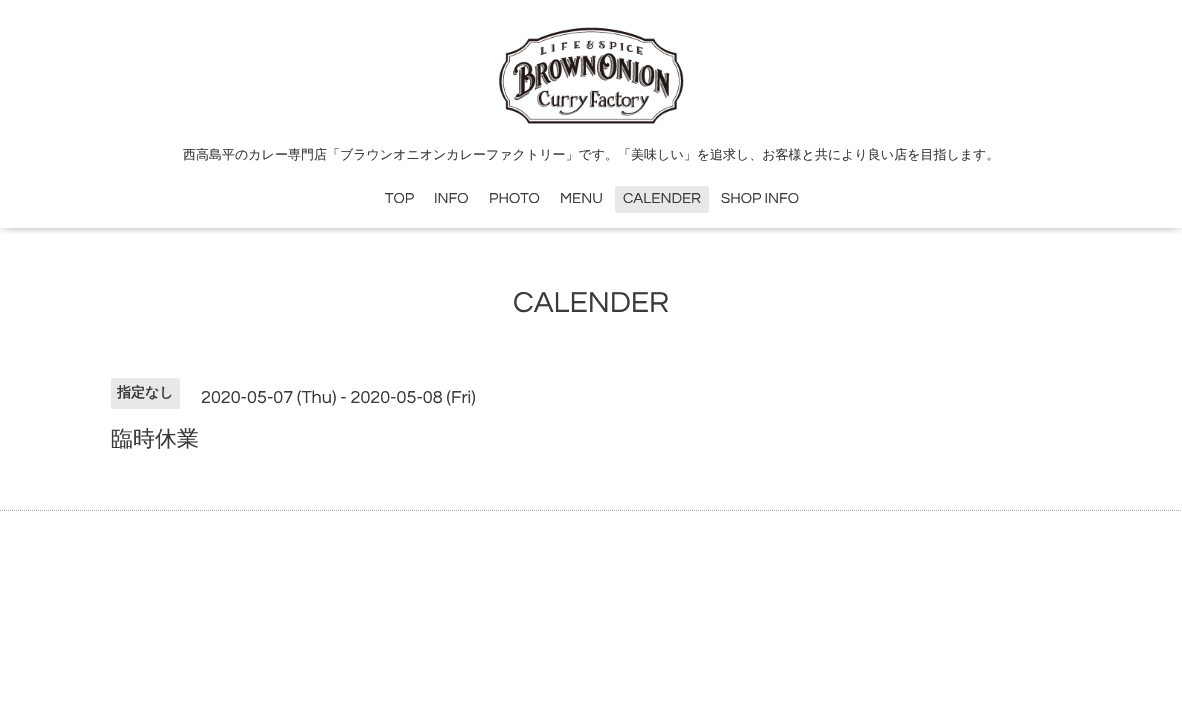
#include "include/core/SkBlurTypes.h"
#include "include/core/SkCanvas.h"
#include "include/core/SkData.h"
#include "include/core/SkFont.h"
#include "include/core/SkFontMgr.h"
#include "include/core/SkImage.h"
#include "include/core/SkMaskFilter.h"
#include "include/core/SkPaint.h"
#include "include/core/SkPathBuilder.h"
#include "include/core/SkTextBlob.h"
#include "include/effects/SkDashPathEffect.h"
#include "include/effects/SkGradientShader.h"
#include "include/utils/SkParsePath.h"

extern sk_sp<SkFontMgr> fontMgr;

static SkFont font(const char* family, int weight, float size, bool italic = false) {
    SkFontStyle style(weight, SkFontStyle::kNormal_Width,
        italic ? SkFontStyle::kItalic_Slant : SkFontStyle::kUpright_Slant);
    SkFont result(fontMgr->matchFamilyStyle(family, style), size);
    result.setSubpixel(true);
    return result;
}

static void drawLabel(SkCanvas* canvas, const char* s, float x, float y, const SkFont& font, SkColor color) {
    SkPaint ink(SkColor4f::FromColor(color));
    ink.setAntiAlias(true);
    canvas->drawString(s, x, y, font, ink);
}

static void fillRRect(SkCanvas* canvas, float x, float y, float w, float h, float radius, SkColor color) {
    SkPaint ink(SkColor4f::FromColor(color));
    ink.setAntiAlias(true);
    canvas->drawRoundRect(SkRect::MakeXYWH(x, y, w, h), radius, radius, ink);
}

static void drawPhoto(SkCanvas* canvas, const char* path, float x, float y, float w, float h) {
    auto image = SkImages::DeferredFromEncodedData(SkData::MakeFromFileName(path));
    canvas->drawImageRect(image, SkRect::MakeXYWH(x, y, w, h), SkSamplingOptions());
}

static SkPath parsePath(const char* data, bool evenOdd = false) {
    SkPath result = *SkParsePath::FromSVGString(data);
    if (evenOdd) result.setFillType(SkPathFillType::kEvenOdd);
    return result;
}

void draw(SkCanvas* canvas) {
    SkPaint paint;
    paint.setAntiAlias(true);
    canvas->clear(0xFFFFFFFF);
    canvas->save();
    canvas->clipRect(SkRect::MakeXYWH(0, 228, 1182, 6));
    paint.setColor(0x99000000);
    paint.setMaskFilter(SkMaskFilter::MakeBlur(kNormal_SkBlurStyle, 5));
    canvas->drawRect(SkRect::MakeXYWH(4, 5, 1174, 220), paint);
    paint.setMaskFilter(nullptr);
    canvas->restore();
    drawPhoto(canvas, "assets/img1.png", 498, 27, 186, 97);
    SkFont font1 = font("WenQuanYi Zen Hei", 500, 13);
    drawLabel(canvas, "西高島平のカレー専門店「ブラウンオニオンカレーファクトリー」です。「美味しい」を追求し、お客様と共により良い店を目指します。", 183, 159, font1, 0xFF3A3A3A);
    SkFont font2 = font("Questrial", 400, 15);
    drawLabel(canvas, "TOP", 385, 203, font2, 0xFF3A3A3A);
    drawLabel(canvas, "INFO", 434, 203, font2, 0xFF3A3A3A);
    drawLabel(canvas, "PHOTO", 489, 203, font2, 0xFF3A3A3A);
    drawLabel(canvas, "MENU", 560, 203, font2, 0xFF3A3A3A);
    fillRRect(canvas, 615, 186, 94, 27, 3, 0xFFE8E8E8);
    drawLabel(canvas, "CALENDER", 623, 203, font2, 0xFF3A3A3A);
    drawLabel(canvas, "SHOP INFO", 721, 203, font2, 0xFF3A3A3A);
    SkFont font3 = font("Questrial", 400, 30);
    drawLabel(canvas, "CALENDER", 513, 312, font3, 0xFF3A3A3A);
    fillRRect(canvas, 111, 378, 69, 31, 2, 0xFFE8E8E8);
    SkFont font4 = font("WenQuanYi Zen Hei", 700, 14);
    drawLabel(canvas, "指定なし", 117, 397, font4, 0xFF3A3A3A);
    SkFont font5 = font("Questrial", 400, 18);
    drawLabel(canvas, "2020-05-07 (Thu) - 2020-05-08 (Fri)", 201, 403, font5, 0xFF3A3A3A);
    SkFont font6 = font("WenQuanYi Zen Hei", 500, 22);
    drawLabel(canvas, "臨時休業", 111, 446, font6, 0xFF3A3A3A);
    paint.setStroke(true);
    paint.setStrokeWidth(1);
    paint.setColor(0xFFA9A9A9);
    paint.setPathEffect(SkDashPathEffect::Make({{1, 1}}, 0));
    canvas->drawPath(parsePath("M0 510.5H1182"), paint);
    paint.setPathEffect(nullptr);
}
